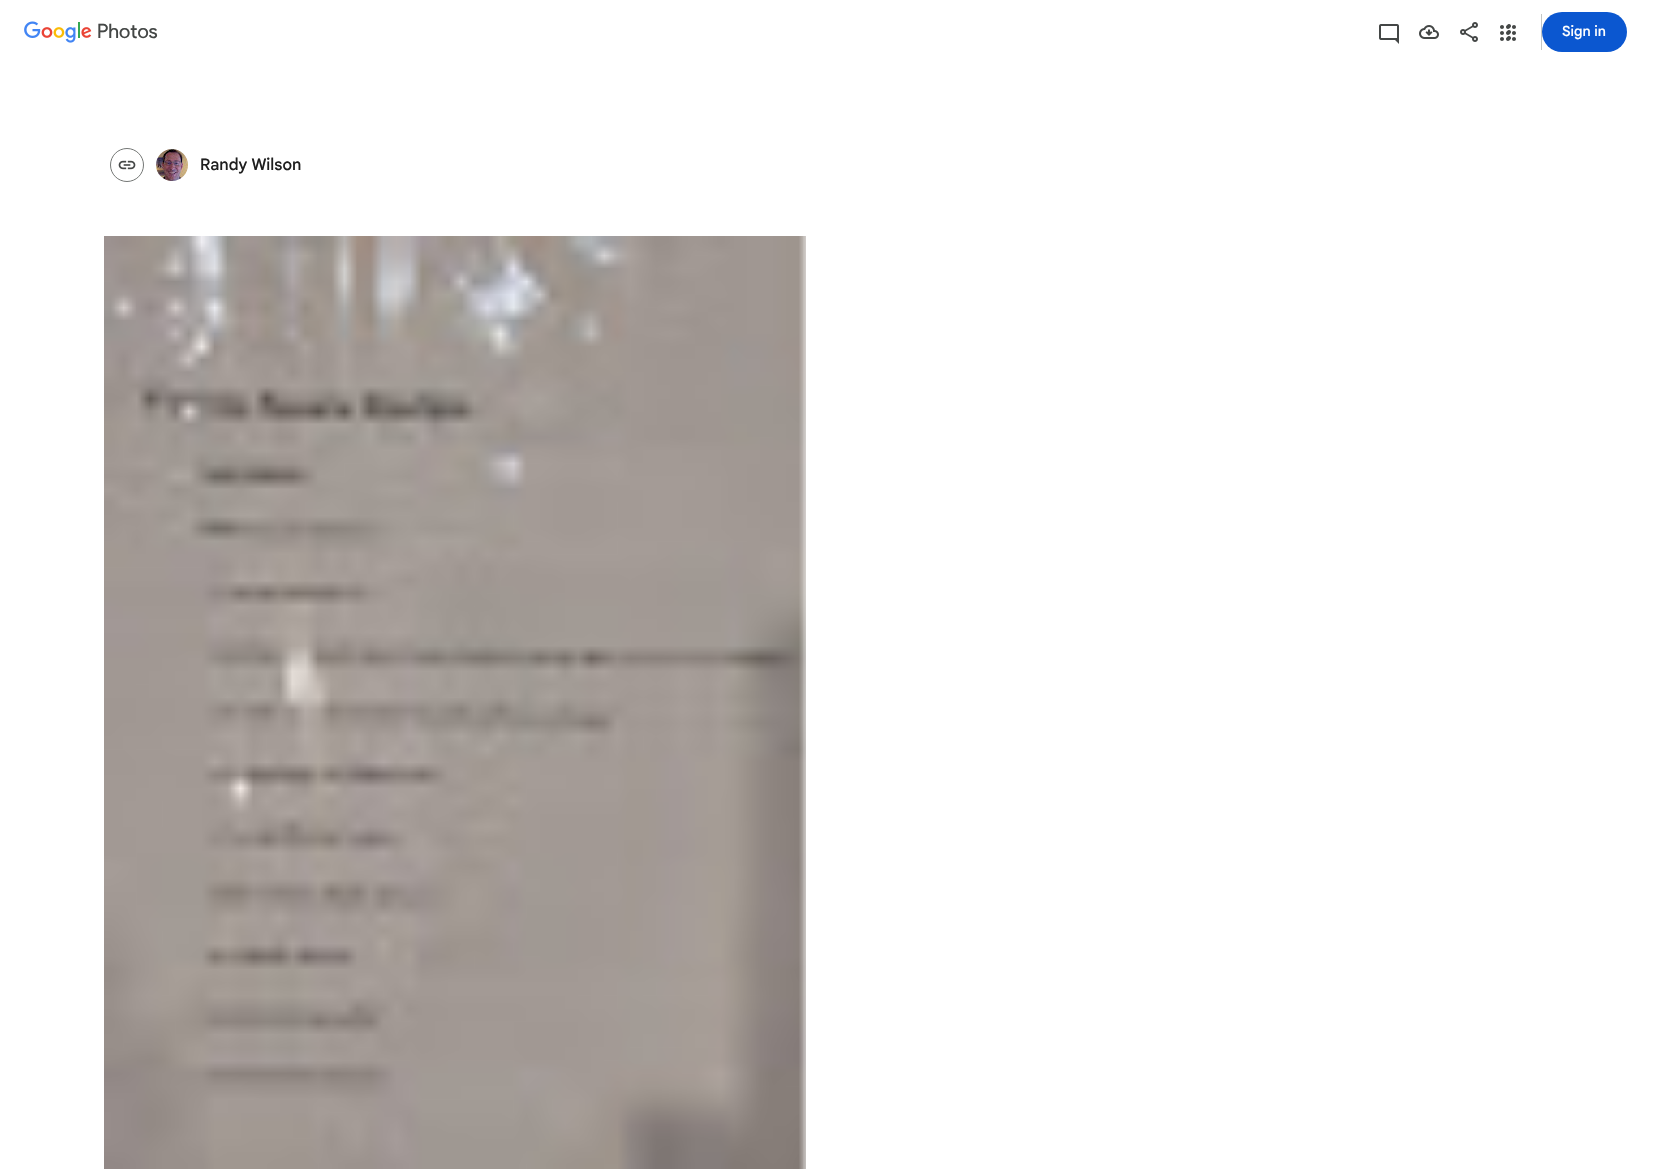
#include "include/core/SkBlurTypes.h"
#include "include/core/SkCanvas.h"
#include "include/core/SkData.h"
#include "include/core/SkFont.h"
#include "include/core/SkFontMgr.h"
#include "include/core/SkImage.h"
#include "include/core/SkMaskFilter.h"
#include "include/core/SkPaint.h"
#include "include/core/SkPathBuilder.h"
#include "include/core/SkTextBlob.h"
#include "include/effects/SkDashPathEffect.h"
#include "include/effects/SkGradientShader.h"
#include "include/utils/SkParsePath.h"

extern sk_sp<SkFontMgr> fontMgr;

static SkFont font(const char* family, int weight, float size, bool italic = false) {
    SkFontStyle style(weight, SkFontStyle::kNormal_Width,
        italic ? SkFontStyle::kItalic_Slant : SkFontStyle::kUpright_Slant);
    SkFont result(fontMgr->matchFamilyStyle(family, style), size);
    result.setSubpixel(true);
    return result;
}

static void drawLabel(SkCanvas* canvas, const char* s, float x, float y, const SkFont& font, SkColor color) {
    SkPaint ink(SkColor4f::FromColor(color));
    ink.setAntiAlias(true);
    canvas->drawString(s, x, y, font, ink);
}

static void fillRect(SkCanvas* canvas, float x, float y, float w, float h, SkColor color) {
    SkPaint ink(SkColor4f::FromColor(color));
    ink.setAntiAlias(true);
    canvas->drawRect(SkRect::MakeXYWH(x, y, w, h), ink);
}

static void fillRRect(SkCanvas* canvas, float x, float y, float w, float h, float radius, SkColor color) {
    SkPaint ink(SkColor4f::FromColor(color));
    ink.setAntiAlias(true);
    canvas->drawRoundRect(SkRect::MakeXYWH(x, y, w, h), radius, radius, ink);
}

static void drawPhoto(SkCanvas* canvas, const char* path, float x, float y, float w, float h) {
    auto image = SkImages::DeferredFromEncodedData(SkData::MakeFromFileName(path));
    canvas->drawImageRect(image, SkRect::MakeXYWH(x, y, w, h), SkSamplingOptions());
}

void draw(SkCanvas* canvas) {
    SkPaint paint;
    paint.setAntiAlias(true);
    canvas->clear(0xFFFFFFFF);
    drawPhoto(canvas, "assets/img1.png", 24, 21, 68, 22);
    SkFont font1 = font("Product Sans", 400, 20);
    drawLabel(canvas, "Photos", 97, 38, font1, 0xFF444746);
    drawPhoto(canvas, "assets/img2.png", 1379, 24, 20, 20);
    drawPhoto(canvas, "assets/img3.png", 1419, 25, 20, 14);
    drawPhoto(canvas, "assets/img4.png", 1460, 22, 18, 20);
    drawPhoto(canvas, "assets/img5.png", 1507, 24, 4, 16);
    fillRect(canvas, 1541, 14, 1, 36, 0xFFC4C7C5);
    paint.setStroke(true);
    paint.setStrokeWidth(1);
    paint.setColor(0xFF747775);
    canvas->drawCircle(127, 165, 16.5f, paint);
    drawPhoto(canvas, "assets/img6.png", 118, 160, 18, 10);
    drawPhoto(canvas, "assets/img7.png", 156, 149, 32, 32);
    SkFont font2 = font("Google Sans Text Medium", 500, 16);
    drawLabel(canvas, "Randy Wilson", 200, 170, font2, 0xFF1F1F1F);
    drawPhoto(canvas, "assets/img8.png", 104, 236, 702, 933);
    drawPhoto(canvas, "assets/img9.png", 1500, 25, 16, 16);
    fillRRect(canvas, 1542, 12, 85, 40, 20, 0xFF0B57D0);
    SkFont font3 = font("Google Sans Text Medium", 500, 14);
    drawLabel(canvas, "Sign in", 1562, 36, font3, 0xFFFFFFFF);
}
